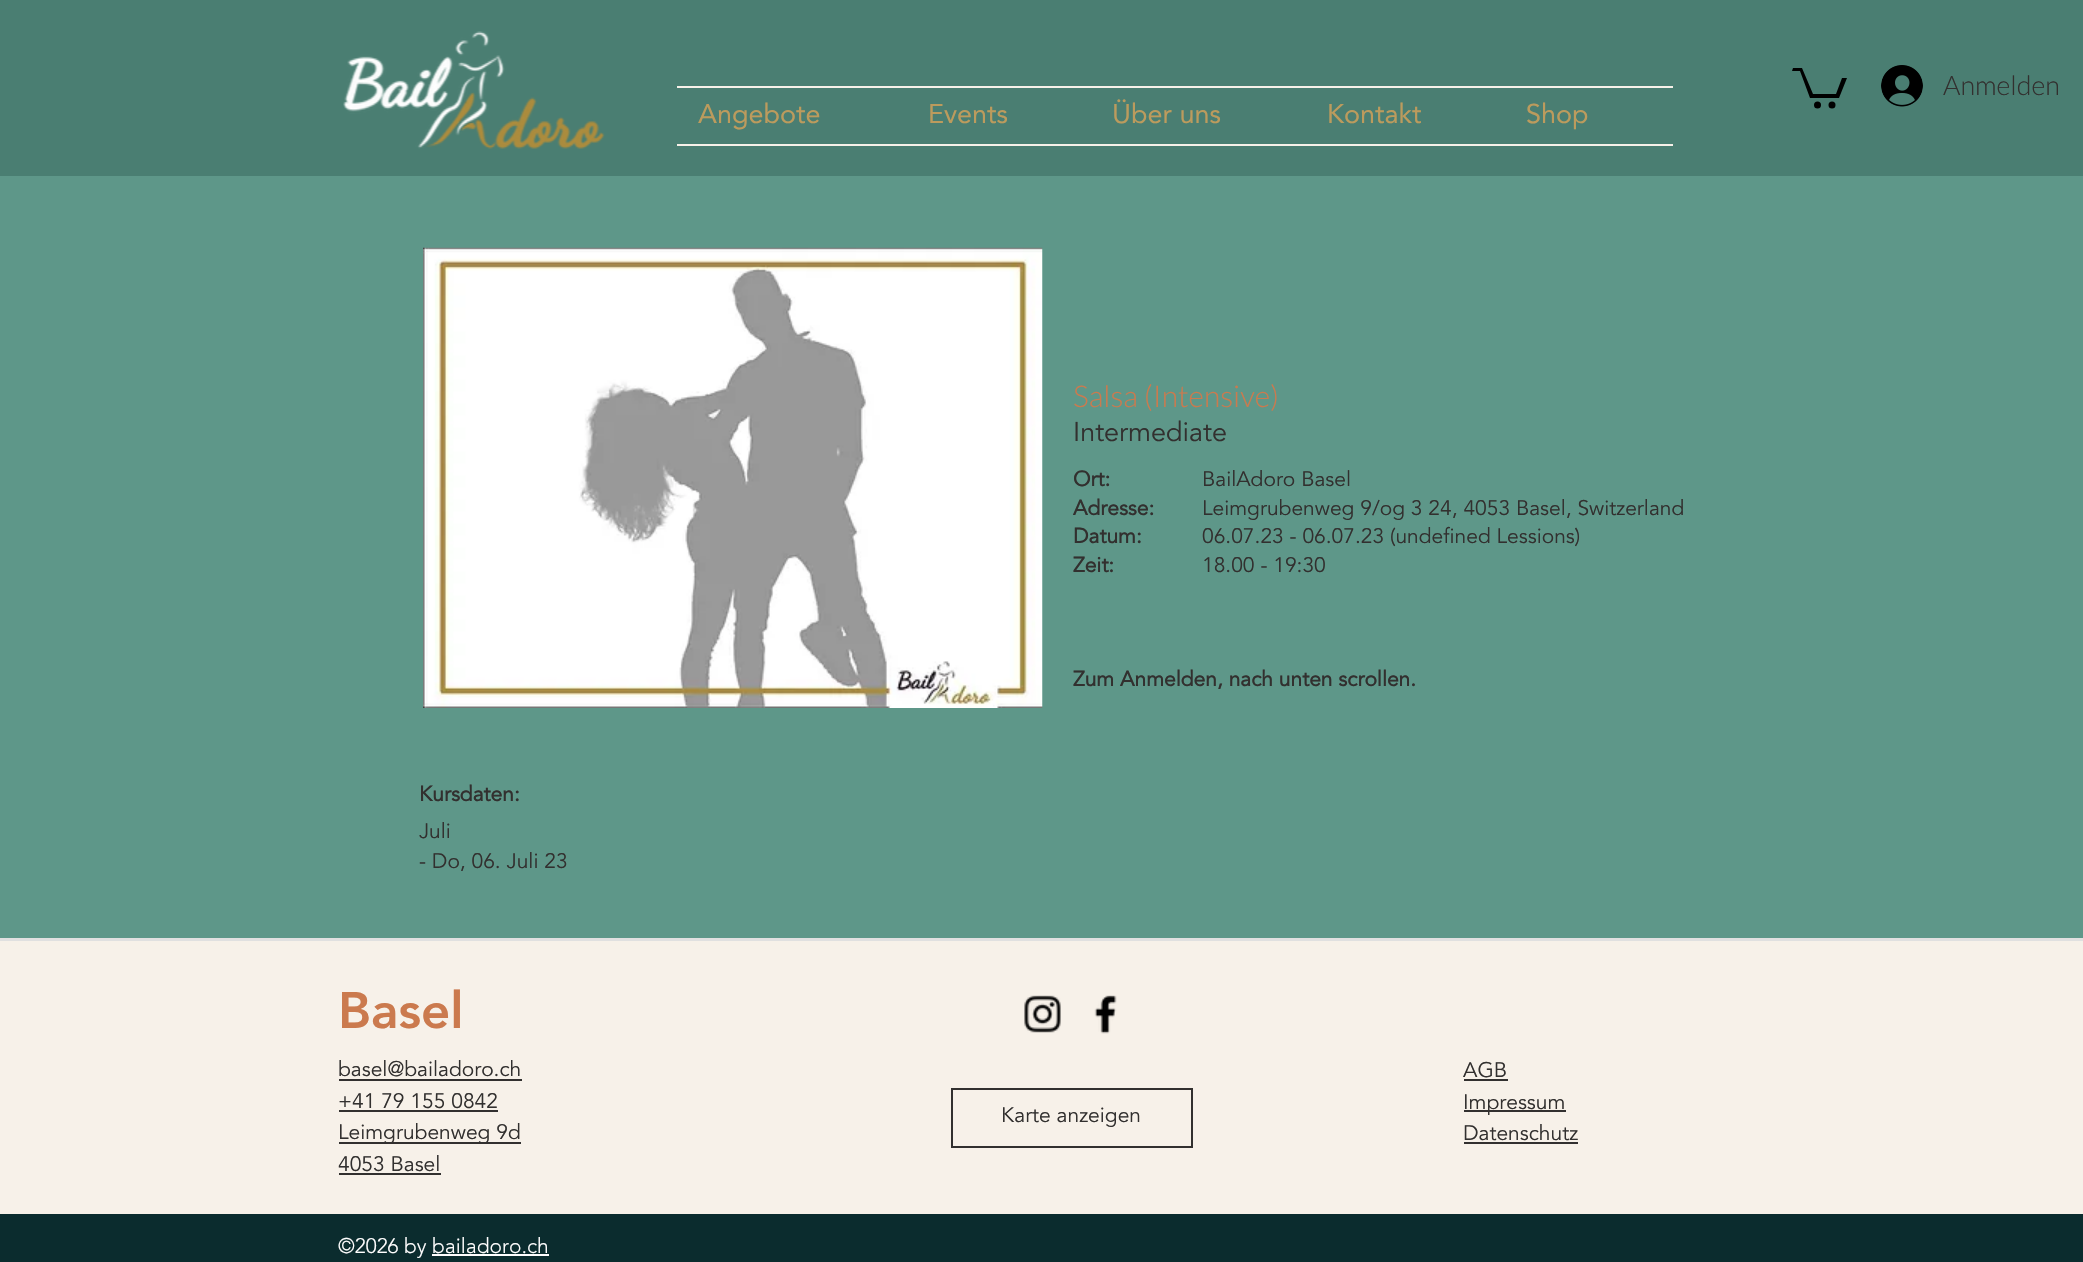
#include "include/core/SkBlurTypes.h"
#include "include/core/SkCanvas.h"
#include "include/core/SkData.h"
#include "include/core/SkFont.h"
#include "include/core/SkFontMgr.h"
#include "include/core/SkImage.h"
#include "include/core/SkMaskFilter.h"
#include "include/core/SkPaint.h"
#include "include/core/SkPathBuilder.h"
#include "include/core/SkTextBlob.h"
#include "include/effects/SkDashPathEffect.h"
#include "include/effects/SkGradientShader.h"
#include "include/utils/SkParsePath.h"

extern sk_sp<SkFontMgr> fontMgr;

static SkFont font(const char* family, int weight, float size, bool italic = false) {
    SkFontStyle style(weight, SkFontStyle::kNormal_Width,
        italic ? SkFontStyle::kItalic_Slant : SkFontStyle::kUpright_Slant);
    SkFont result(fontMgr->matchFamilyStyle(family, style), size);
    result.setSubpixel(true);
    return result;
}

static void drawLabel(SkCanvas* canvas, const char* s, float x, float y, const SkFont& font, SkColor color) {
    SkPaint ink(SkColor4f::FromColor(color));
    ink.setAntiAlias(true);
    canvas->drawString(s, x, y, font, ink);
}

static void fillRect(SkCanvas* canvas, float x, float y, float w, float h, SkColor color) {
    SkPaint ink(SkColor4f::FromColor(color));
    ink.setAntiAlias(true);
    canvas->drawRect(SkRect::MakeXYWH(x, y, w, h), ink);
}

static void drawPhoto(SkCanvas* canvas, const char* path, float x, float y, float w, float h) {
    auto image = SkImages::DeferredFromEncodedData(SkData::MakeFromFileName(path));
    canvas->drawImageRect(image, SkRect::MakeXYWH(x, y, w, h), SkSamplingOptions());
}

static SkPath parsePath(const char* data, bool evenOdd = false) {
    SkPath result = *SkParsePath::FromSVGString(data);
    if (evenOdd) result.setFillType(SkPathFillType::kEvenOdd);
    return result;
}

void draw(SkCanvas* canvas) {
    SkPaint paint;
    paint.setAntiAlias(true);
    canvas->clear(0xFF5E9789);
    fillRect(canvas, 0, 0, 2083, 176, 0xFF4A7E72);
    drawPhoto(canvas, "assets/img1.png", 343, 31, 262, 118);
    paint.setColor(0xFF000000);
    canvas->drawPath(parsePath("M1847 78L1839 98H1810L1800 71H1792L1793 68H1802L1813 94H1836L1842 78"), paint);
    canvas->drawCircle(1832, 105, 3.5f, paint);
    canvas->drawCircle(1817.5f, 105, 3.5f, paint);
    drawPhoto(canvas, "assets/img2.png", 1881, 65, 42, 42);
    SkFont font1 = font("Lato", 300, 27);
    drawLabel(canvas, "Anmelden", 1943, 95, font1, 0xFF32302F);
    fillRect(canvas, 677, 86, 996, 2, 0xFFF7F1E9);
    fillRect(canvas, 677, 144, 996, 2, 0xFFF7F1E9);
    SkFont font2 = font("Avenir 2", 400, 27);
    drawLabel(canvas, "Angebote", 698, 123, font2, 0xFFBC9B5D);
    drawLabel(canvas, "Events", 928, 123, font2, 0xFFBC9B5D);
    drawLabel(canvas, "Über uns", 1112, 123, font2, 0xFFBC9B5D);
    drawLabel(canvas, "Kontakt", 1327, 123, font2, 0xFFBC9B5D);
    drawLabel(canvas, "Shop", 1526, 123, font2, 0xFFBC9B5D);
    drawPhoto(canvas, "assets/img3.png", 423, 247, 620, 461);
    SkFont font3 = font("Lato", 300, 30);
    drawLabel(canvas, "Salsa (Intensive)", 1073, 407, font3, 0xFFCB7A4E);
    SkFont font4 = font("Avenir", 400, 27);
    drawLabel(canvas, "Intermediate", 1073, 441, font4, 0xFF32302F);
    SkFont font5 = font("Avenir", 700, 21);
    drawLabel(canvas, "Ort:", 1073, 486, font5, 0xFF32302F);
    SkFont font6 = font("Avenir", 400, 21);
    drawLabel(canvas, "BailAdoro Basel", 1202, 486, font6, 0xFF32302F);
    drawLabel(canvas, "Adresse:", 1073, 515, font5, 0xFF32302F);
    drawLabel(canvas, "Leimgrubenweg 9/og 3 24, 4053 Basel, Switzerland", 1202, 515, font6, 0xFF32302F);
    drawLabel(canvas, "Datum:", 1073, 543, font5, 0xFF32302F);
    drawLabel(canvas, "06.07.23 - 06.07.23 (undefined Lessions)", 1202, 543, font6, 0xFF32302F);
    drawLabel(canvas, "Zeit:", 1073, 572, font5, 0xFF32302F);
    drawLabel(canvas, "18.00 - 19:30", 1202, 572, font6, 0xFF32302F);
    drawLabel(canvas, "Zum Anmelden, nach unten scrollen.", 1073, 686, font5, 0xFF32302F);
    drawLabel(canvas, "Kursdaten:", 419, 801, font5, 0xFF32302F);
    drawLabel(canvas, "Juli", 419, 838, font6, 0xFF32302F);
    drawLabel(canvas, "- Do, 06. Juli 23", 419, 868, font6, 0xFF32302F);
    fillRect(canvas, 0, 938, 2083, 3, 0xFFE0E0E0);
    fillRect(canvas, 0, 941, 2083, 273, 0xFFF7F1E9);
    SkFont font7 = font("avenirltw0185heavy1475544", 900, 51);
    drawLabel(canvas, "Basel", 338, 1028, font7, 0xFFCB7A4E);
    drawLabel(canvas, "basel@bailadoro.ch", 338, 1076, font6, 0xFF32302F);
    fillRect(canvas, 339, 1079, 183, 2, 0xFF32302F);
    drawLabel(canvas, "+41 79 155 0842", 338, 1108, font6, 0xFF32302F);
    fillRect(canvas, 339, 1110, 159, 2, 0xFF32302F);
    fillRect(canvas, 339, 1142, 182, 2, 0xFF32302F);
    drawLabel(canvas, "Leimgrubenweg 9d", 338, 1139, font6, 0xFF32302F);
    drawLabel(canvas, "4053 Basel", 338, 1171, font6, 0xFF32302F);
    fillRect(canvas, 339, 1173, 102, 2, 0xFF32302F);
    paint.setStroke(true);
    paint.setStrokeWidth(2);
    paint.setColor(0xFF32302F);
    canvas->drawRect(SkRect::MakeXYWH(952, 1089, 240, 58), paint);
    drawLabel(canvas, "Karte anzeigen", 1001, 1122, font6, 0xFF32302F);
    drawPhoto(canvas, "assets/img4.png", 1024, 995, 37, 38);
    drawPhoto(canvas, "assets/img5.png", 1094, 995, 23, 39);
    drawLabel(canvas, "AGB", 1463, 1077, font6, 0xFF32302F);
    fillRect(canvas, 1464, 1079, 44, 2, 0xFF32302F);
    fillRect(canvas, 1464, 1110, 102, 2, 0xFF32302F);
    drawLabel(canvas, "Impressum", 1463, 1109, font6, 0xFF32302F);
    drawLabel(canvas, "Datenschutz", 1463, 1140, font6, 0xFF32302F);
    fillRect(canvas, 1464, 1142, 114, 2, 0xFF32302F);
    fillRect(canvas, 0, 1214, 2083, 48, 0xFF0B2C2E);
    SkFont font8 = font("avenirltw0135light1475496", 300, 21);
    drawLabel(canvas, "©2026 by bailadoro.ch", 338, 1253, font8, 0xFFFFFEFE);
    fillRect(canvas, 432, 1254, 117, 2, 0xFFFFFEFE);
}
